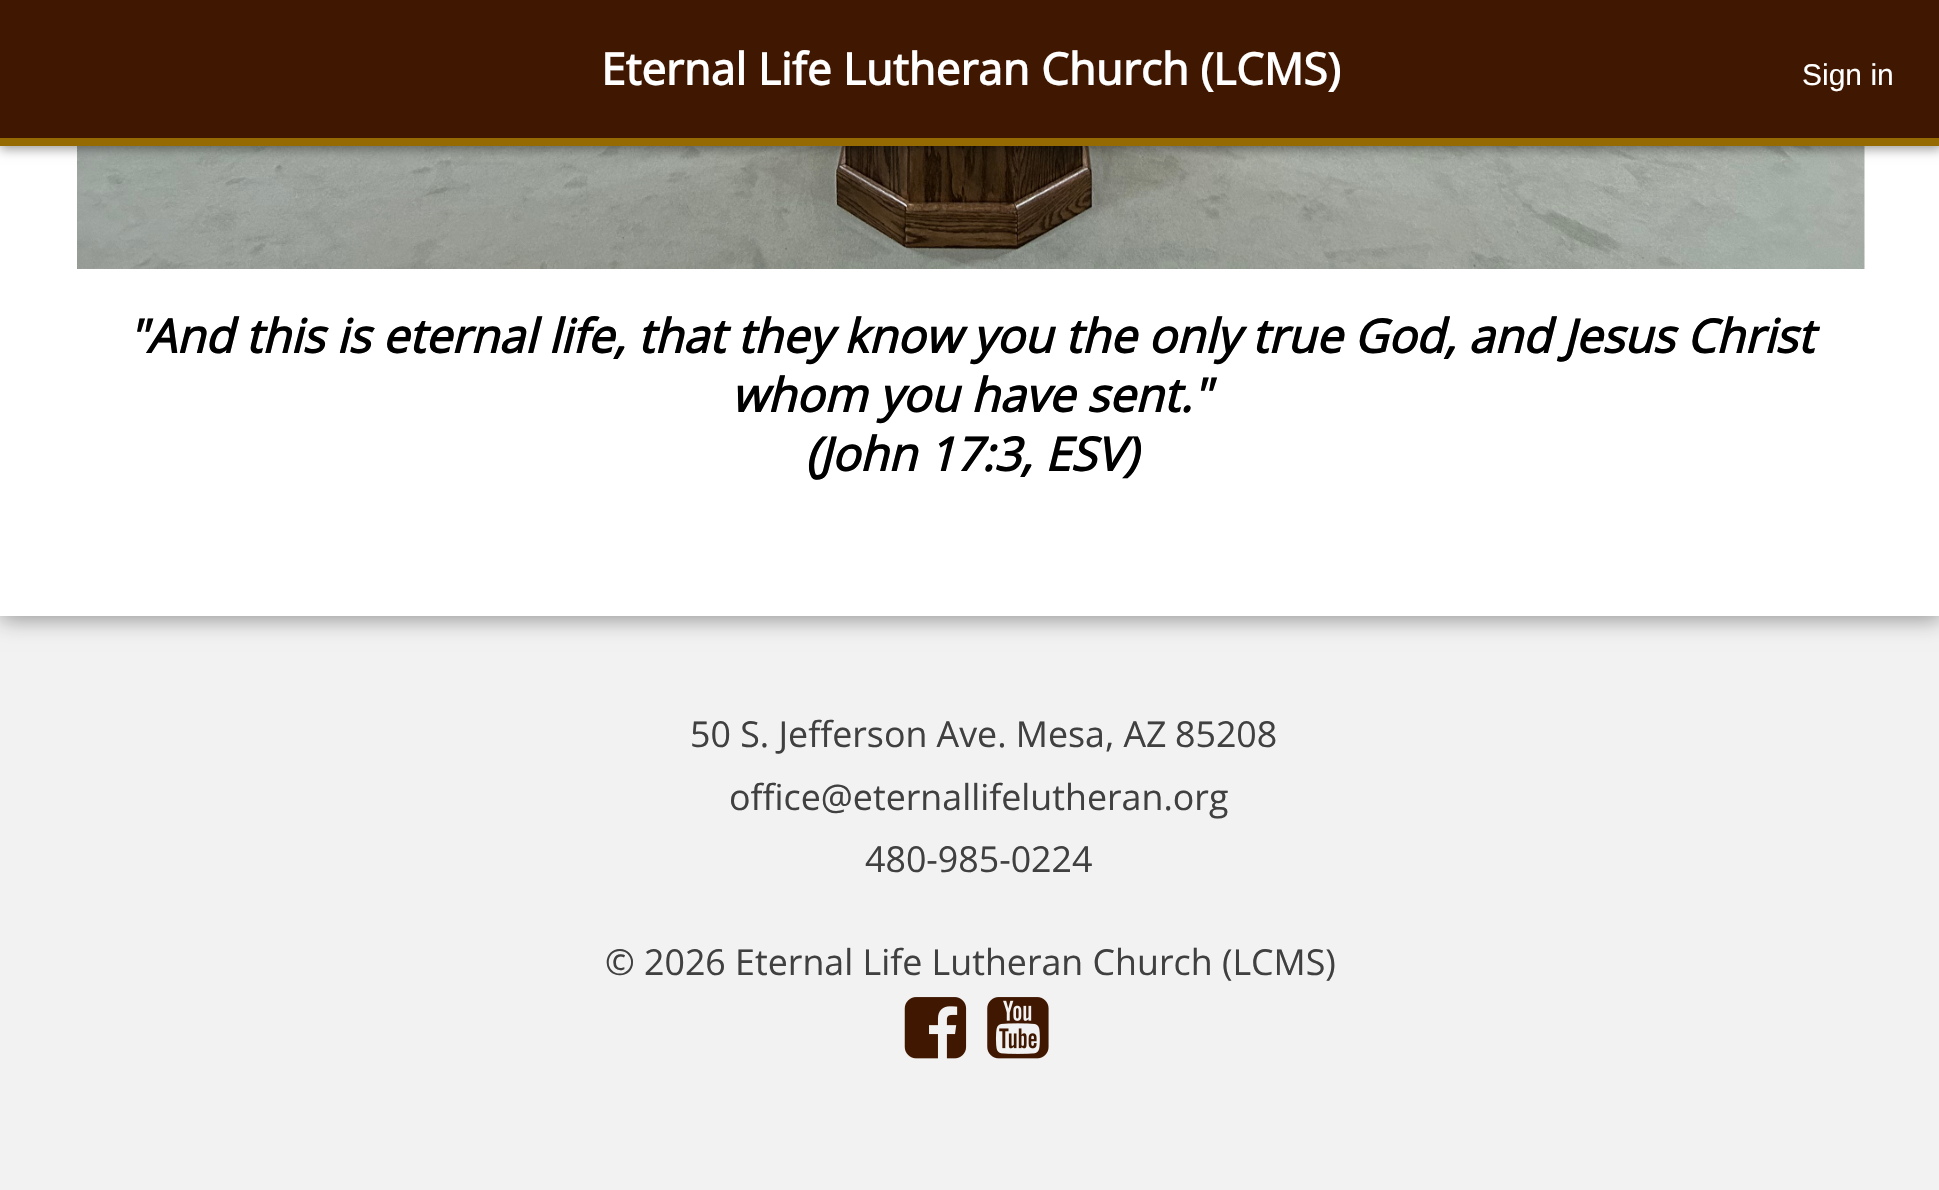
#include "include/core/SkBlurTypes.h"
#include "include/core/SkCanvas.h"
#include "include/core/SkData.h"
#include "include/core/SkFont.h"
#include "include/core/SkFontMgr.h"
#include "include/core/SkImage.h"
#include "include/core/SkMaskFilter.h"
#include "include/core/SkPaint.h"
#include "include/core/SkPathBuilder.h"
#include "include/core/SkTextBlob.h"
#include "include/effects/SkDashPathEffect.h"
#include "include/effects/SkGradientShader.h"
#include "include/utils/SkParsePath.h"

extern sk_sp<SkFontMgr> fontMgr;

static SkFont font(const char* family, int weight, float size, bool italic = false) {
    SkFontStyle style(weight, SkFontStyle::kNormal_Width,
        italic ? SkFontStyle::kItalic_Slant : SkFontStyle::kUpright_Slant);
    SkFont result(fontMgr->matchFamilyStyle(family, style), size);
    result.setSubpixel(true);
    return result;
}

static void drawLabel(SkCanvas* canvas, const char* s, float x, float y, const SkFont& font, SkColor color) {
    SkPaint ink(SkColor4f::FromColor(color));
    ink.setAntiAlias(true);
    canvas->drawString(s, x, y, font, ink);
}

static void fillRect(SkCanvas* canvas, float x, float y, float w, float h, SkColor color) {
    SkPaint ink(SkColor4f::FromColor(color));
    ink.setAntiAlias(true);
    canvas->drawRect(SkRect::MakeXYWH(x, y, w, h), ink);
}

static void drawPhoto(SkCanvas* canvas, const char* path, float x, float y, float w, float h) {
    auto image = SkImages::DeferredFromEncodedData(SkData::MakeFromFileName(path));
    canvas->drawImageRect(image, SkRect::MakeXYWH(x, y, w, h), SkSamplingOptions());
}

void draw(SkCanvas* canvas) {
    SkPaint paint;
    paint.setAntiAlias(true);
    canvas->clear(0xFFF2F2F2);
    paint.setColor(0x66000000);
    paint.setMaskFilter(SkMaskFilter::MakeBlur(kNormal_SkBlurStyle, 11));
    canvas->drawRect(SkRect::MakeXYWH(0, -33, 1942, 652), paint);
    paint.setMaskFilter(nullptr);
    fillRect(canvas, 0, 146, 1939, 470, 0xFFFFFFFF);
    drawPhoto(canvas, "assets/img1.png", 77, 146, 1788, 123);
    paint.setMaskFilter(SkMaskFilter::MakeBlur(kNormal_SkBlurStyle, 5.5f));
    canvas->drawRect(SkRect::MakeXYWH(0, 3, 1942, 146), paint);
    paint.setMaskFilter(nullptr);
    fillRect(canvas, 0, 0, 1939, 138, 0xFF401700);
    fillRect(canvas, 0, 138, 1939, 8, 0xFF966A02);
    SkFont font1 = font("Open Sans", 700, 44);
    drawLabel(canvas, "Eternal Life Lutheran Church (LCMS)", 601, 85, font1, 0xFFFFFFFF);
    SkFont font2 = font("Liberation Sans", 400, 30);
    drawLabel(canvas, "Sign in", 1802, 85, font2, 0xFFFFFFFF);
    SkFont font3 = font("Open Sans", 700, 46.5f, true);
    drawLabel(canvas, "\"And this is eternal life, that they know you the only true God, and Jesus Christ", 128, 353, font3, 0xFF000000);
    drawLabel(canvas, "whom you have sent.\"", 731, 412, font3, 0xFF000000);
    drawLabel(canvas, "(John 17:3, ESV)", 805, 471, font3, 0xFF000000);
    SkFont font4 = font("Open Sans", 400, 35.75f);
    drawLabel(canvas, "50 S. Jefferson Ave. Mesa, AZ", 690, 747, font4, 0xFF404040);
    drawLabel(canvas, "85208", 1175, 747, font4, 0xFF404040);
    drawLabel(canvas, "office@eternallifelutheran.org", 729, 810, font4, 0xFF404040);
    drawLabel(canvas, "480-985-0224", 865, 872, font4, 0xFF404040);
    drawLabel(canvas, "© 2026 Eternal Life Lutheran Church (LCMS)", 605, 975, font4, 0xFF404040);
    drawPhoto(canvas, "assets/img2.png", 904, 997, 63, 62);
    drawPhoto(canvas, "assets/img3.png", 987, 997, 62, 62);
}
